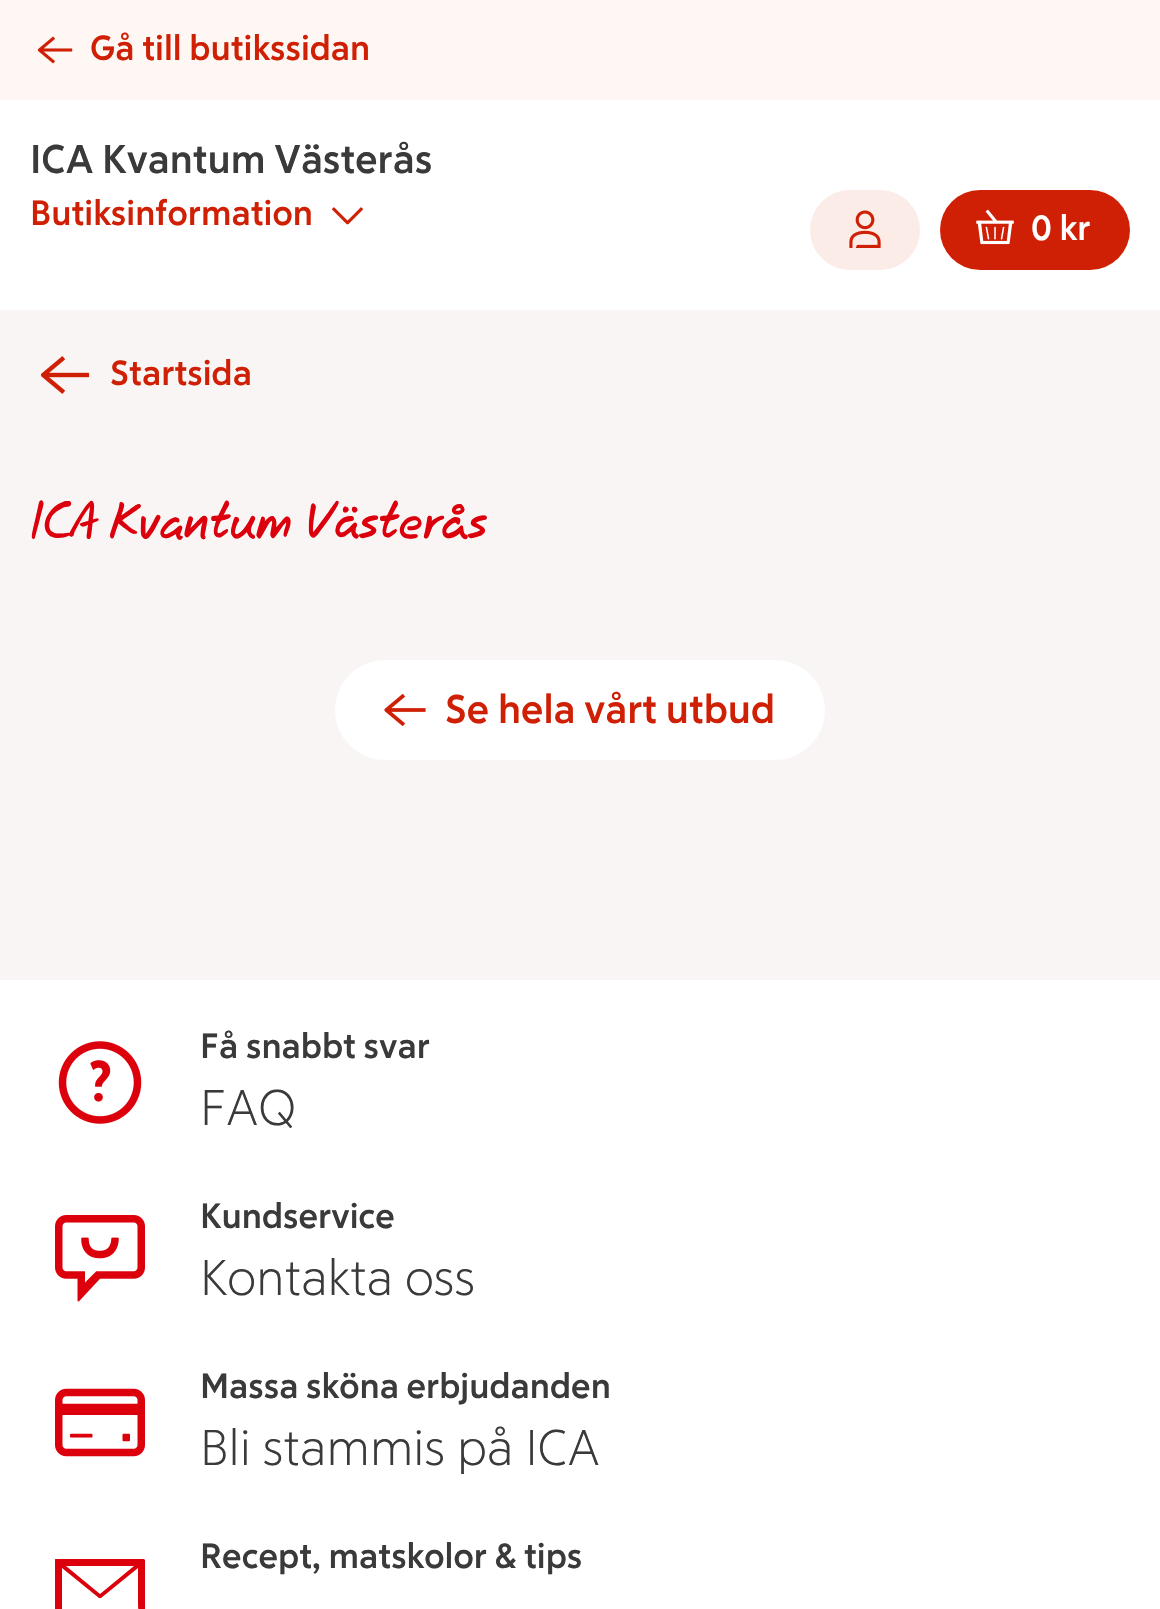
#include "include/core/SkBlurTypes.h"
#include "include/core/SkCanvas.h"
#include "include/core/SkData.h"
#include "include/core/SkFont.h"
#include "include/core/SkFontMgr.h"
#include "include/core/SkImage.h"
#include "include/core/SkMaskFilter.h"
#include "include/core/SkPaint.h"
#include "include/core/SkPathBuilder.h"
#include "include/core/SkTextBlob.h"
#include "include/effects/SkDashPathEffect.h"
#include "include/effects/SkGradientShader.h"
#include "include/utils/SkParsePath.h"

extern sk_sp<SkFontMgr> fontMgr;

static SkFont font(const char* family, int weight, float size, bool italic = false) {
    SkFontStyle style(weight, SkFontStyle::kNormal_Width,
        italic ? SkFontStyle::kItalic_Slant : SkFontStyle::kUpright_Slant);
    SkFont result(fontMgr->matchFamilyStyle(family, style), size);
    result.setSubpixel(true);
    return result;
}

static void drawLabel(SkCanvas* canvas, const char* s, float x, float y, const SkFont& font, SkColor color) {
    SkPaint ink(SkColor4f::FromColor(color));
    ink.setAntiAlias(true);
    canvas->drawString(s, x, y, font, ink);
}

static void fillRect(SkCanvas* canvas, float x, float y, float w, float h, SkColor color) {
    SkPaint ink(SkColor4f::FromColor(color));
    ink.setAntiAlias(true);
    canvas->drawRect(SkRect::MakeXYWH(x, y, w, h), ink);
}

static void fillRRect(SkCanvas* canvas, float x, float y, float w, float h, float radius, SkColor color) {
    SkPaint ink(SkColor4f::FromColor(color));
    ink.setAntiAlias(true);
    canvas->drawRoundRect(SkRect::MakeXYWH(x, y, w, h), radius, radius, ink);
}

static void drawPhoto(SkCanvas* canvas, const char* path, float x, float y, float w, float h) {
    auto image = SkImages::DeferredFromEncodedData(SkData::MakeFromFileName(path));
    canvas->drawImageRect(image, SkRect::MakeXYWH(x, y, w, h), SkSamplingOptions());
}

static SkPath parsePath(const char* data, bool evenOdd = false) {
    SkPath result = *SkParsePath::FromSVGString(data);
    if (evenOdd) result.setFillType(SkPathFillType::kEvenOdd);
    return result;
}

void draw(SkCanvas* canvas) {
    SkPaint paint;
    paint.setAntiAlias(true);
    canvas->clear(0xFFF9F5F5);
    fillRect(canvas, 0, 100, 1160, 210, 0xFFFFFFFF);
    fillRect(canvas, 0, 0, 1160, 100, 0xFFFEF7F3);
    drawPhoto(canvas, "assets/img1.png", 37, 36, 36, 28);
    SkFont font1 = font("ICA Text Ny", 700, 35);
    drawLabel(canvas, "Gå till butikssidan", 90, 60, font1, 0xFFCF2005);
    SkFont font2 = font("ICA Text Ny", 700, 40);
    drawLabel(canvas, "ICA Kvantum Västerås", 30, 173, font2, 0xFF3A3A3A);
    drawLabel(canvas, "Butiksinformation", 30, 225, font1, 0xFFCF2005);
    drawPhoto(canvas, "assets/img2.png", 331, 207, 33, 18);
    fillRRect(canvas, 810, 190, 110, 80, 40, 0xFFFCECE7);
    drawPhoto(canvas, "assets/img3.png", 849, 210, 32, 38);
    fillRRect(canvas, 940, 190, 190, 80, 40, 0xFFCF2005);
    drawPhoto(canvas, "assets/img4.png", 976, 209, 38, 36);
    drawLabel(canvas, "0 kr", 1031, 240, font1, 0xFFFFFFFF);
    drawPhoto(canvas, "assets/img5.png", 41, 356, 49, 38);
    drawLabel(canvas, "Startsida", 110, 385, font1, 0xFFCF2005);
    SkFont font3 = font("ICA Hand", 400, 50, true);
    drawLabel(canvas, "ICA Kvantum Västerås", 30, 538, font3, 0xFFDB000B);
    fillRRect(canvas, 335, 660, 490, 100, 50, 0xFFFFFFFF);
    drawPhoto(canvas, "assets/img6.png", 384, 694, 42, 33);
    drawLabel(canvas, "Se hela vårt utbud", 445, 723, font2, 0xFFCF2005);
    fillRect(canvas, 0, 980, 1160, 629, 0xFFFFFFFF);
    drawPhoto(canvas, "assets/img7.png", 58, 1041, 84, 83);
    drawLabel(canvas, "Få snabbt svar", 200, 1058, font1, 0xFF3A3A3A);
    SkFont font4 = font("ICA Text Ny", 300, 50);
    drawLabel(canvas, "FAQ", 200, 1125, font4, 0xFF3A3A3A);
    drawPhoto(canvas, "assets/img8.png", 55, 1215, 90, 87);
    drawLabel(canvas, "Kundservice", 200, 1228, font1, 0xFF3A3A3A);
    drawLabel(canvas, "Kontakta oss", 200, 1295, font4, 0xFF3A3A3A);
    drawPhoto(canvas, "assets/img9.png", 55, 1388, 90, 69);
    drawLabel(canvas, "Massa sköna erbjudanden", 200, 1398, font1, 0xFF3A3A3A);
    drawLabel(canvas, "Bli stammis på ICA", 200, 1465, font4, 0xFF3A3A3A);
    paint.setColor(0xFFDB000B);
    canvas->drawPath(parsePath("M100 1594L66 1566H134ZM144 1559H56C55 1559 55 1559 55 1560V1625C55 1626 55 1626 56 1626H62C62 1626 62 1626 62 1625V1568L99 1598H101L138 1568V1601C138 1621 143 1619 126 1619H84C74 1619 75 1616 71 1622L70 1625L71 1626H132C148 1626 145 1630 145 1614V1560L144 1559", true), paint);
    drawLabel(canvas, "Recept, matskolor & tips", 200, 1568, font1, 0xFF3A3A3A);
}
